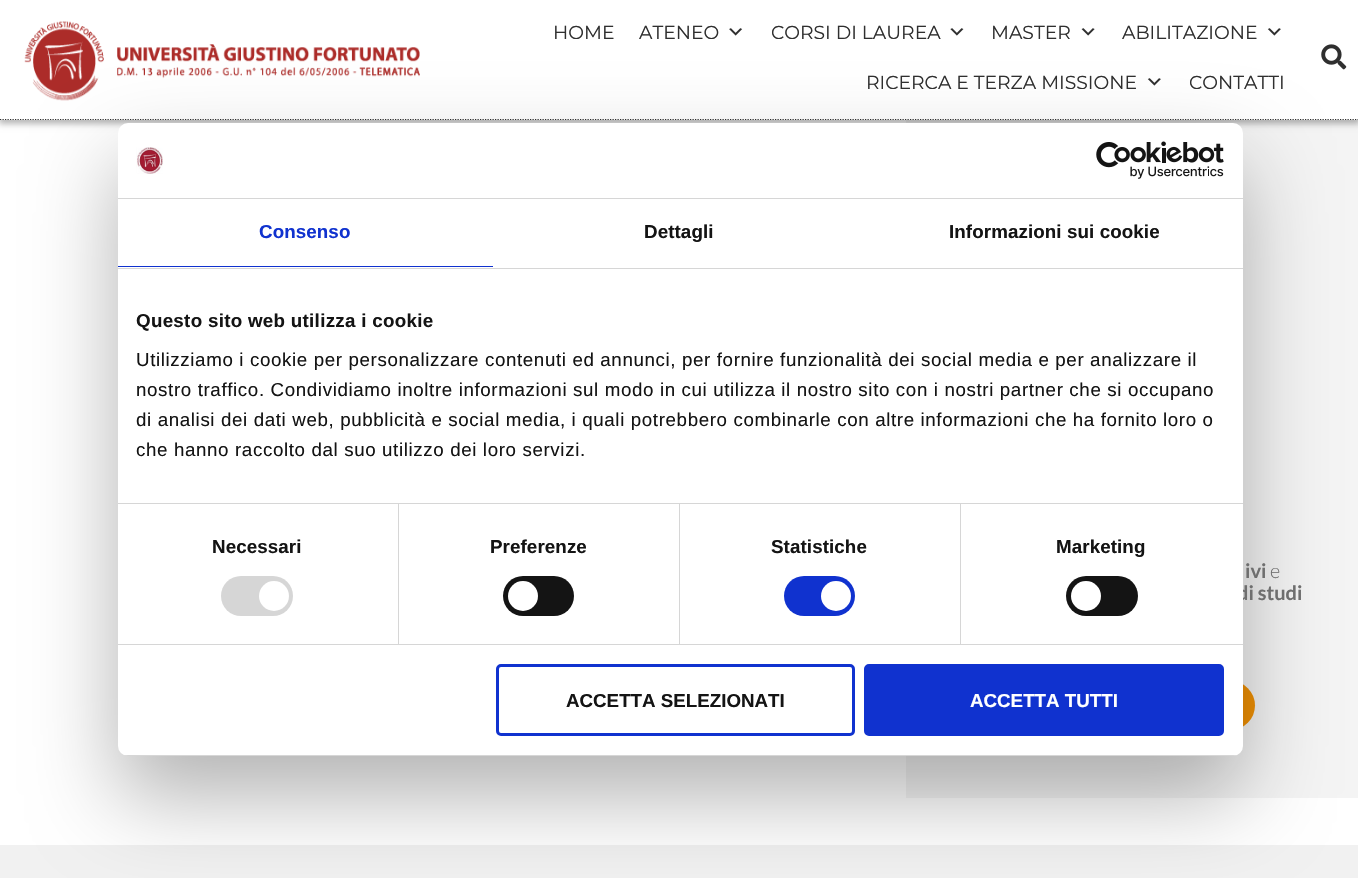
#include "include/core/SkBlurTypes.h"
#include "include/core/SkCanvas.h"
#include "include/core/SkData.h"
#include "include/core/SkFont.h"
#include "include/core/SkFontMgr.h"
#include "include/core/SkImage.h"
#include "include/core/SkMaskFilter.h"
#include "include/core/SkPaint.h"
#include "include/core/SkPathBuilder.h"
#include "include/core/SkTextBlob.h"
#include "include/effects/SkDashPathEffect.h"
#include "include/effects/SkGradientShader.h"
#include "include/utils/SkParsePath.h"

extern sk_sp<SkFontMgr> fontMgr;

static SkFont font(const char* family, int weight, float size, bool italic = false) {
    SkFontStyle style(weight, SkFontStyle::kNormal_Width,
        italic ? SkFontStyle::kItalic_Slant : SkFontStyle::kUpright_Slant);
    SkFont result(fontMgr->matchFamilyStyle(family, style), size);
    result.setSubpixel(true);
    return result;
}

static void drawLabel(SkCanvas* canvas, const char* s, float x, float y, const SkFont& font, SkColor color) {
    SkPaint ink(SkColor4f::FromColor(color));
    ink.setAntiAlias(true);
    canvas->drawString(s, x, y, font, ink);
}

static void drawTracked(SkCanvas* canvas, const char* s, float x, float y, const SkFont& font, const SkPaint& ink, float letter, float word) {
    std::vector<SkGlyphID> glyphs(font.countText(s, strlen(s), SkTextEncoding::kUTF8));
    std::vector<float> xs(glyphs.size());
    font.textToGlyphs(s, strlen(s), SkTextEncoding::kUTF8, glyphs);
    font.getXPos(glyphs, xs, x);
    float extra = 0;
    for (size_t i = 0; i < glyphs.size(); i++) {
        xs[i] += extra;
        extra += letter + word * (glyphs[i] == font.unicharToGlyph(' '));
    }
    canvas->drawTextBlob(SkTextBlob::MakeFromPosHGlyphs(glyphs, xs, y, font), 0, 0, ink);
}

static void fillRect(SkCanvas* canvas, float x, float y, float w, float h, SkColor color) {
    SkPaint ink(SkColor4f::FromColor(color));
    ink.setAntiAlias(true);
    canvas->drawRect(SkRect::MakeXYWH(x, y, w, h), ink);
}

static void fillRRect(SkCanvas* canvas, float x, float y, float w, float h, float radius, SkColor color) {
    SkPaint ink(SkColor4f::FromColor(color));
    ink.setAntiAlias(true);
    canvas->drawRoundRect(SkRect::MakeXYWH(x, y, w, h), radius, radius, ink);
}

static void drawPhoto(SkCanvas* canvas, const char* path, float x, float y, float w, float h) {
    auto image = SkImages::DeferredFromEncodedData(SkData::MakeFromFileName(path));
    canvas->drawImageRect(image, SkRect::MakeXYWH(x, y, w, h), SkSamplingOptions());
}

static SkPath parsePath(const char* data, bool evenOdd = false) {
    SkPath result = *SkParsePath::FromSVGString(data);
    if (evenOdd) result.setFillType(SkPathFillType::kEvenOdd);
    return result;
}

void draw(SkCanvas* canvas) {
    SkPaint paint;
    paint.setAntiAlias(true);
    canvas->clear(0xFFFFFFFF);
    fillRect(canvas, 906, 120, 452, 678, 0xFFF4F4F4);
    paint.setColor(0x47000000);
    paint.setMaskFilter(SkMaskFilter::MakeBlur(kNormal_SkBlurStyle, 3));
    canvas->drawRect(SkRect::MakeXYWH(-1, -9, 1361, 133), paint);
    paint.setMaskFilter(nullptr);
    fillRect(canvas, 1, 119, 1357, 1, 0xFFFFFFFF);
    paint.setStroke(true);
    paint.setStrokeWidth(1.2f);
    paint.setColor(0xFF2F2F2F);
    paint.setPathEffect(SkDashPathEffect::Make({{1.25f, 1.25f}}, 0));
    canvas->drawPath(parsePath("M0 119.5H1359"), paint);
    paint.setPathEffect(nullptr);
    fillRect(canvas, 0, 0, 1358, 119, 0xFFFFFFFF);
    drawPhoto(canvas, "assets/img1.png", 24, 21, 396, 80);
    SkFont font1 = font("Montserrat", 400, 18.75f);
    drawLabel(canvas, "HOME", 553, 39, font1, 0xFF2F2F2F);
    drawLabel(canvas, "ATENEO", 639, 39, font1, 0xFF2F2F2F);
    drawPhoto(canvas, "assets/img2.png", 729, 28, 14, 8);
    drawLabel(canvas, "CORSI DI LAUREA", 771, 39, font1, 0xFF2F2F2F);
    drawPhoto(canvas, "assets/img3.png", 950, 28, 14, 8);
    drawLabel(canvas, "MASTER", 991, 39, font1, 0xFF2F2F2F);
    drawPhoto(canvas, "assets/img4.png", 1081, 28, 14, 8);
    drawLabel(canvas, "ABILITAZIONE", 1122, 39, font1, 0xFF2F2F2F);
    drawPhoto(canvas, "assets/img5.png", 1267, 28, 14, 8);
    drawLabel(canvas, "RICERCA E TERZA MISSIONE", 866, 89, font1, 0xFF2F2F2F);
    drawPhoto(canvas, "assets/img5.png", 1147, 78, 14, 8);
    drawLabel(canvas, "CONTATTI", 1189, 89, font1, 0xFF2F2F2F);
    drawPhoto(canvas, "assets/img6.png", 1321, 44, 26, 26);
    fillRRect(canvas, 1009, 681, 246, 49, 24.5f, 0xFFF19103);
    fillRect(canvas, 0, 845, 1358, 33, 0xFFF1F1F1);
    paint.setStroke(false);
    paint.setColor(0x4D000000);
    paint.setMaskFilter(SkMaskFilter::MakeBlur(kNormal_SkBlurStyle, 42.5f));
    canvas->drawRoundRect(SkRect::MakeXYWH(118, 163, 1125, 633), 10, 10, paint);
    paint.setMaskFilter(nullptr);
    SkFont font2 = font("Lato", 700, 20);
    drawLabel(canvas, "di studi", 1237, 600, font2, 0xFF6E6E6E);
    fillRRect(canvas, 118, 123, 1125, 633, 10, 0xFFFFFFFF);
    fillRect(canvas, 118, 198, 1125, 1, 0xFFD6D6D6);
    drawPhoto(canvas, "assets/img7.png", 136, 147, 27, 27);
    drawPhoto(canvas, "assets/img8.png", 1096, 141, 128, 38);
    fillRect(canvas, 118, 268, 1125, 1, 0xFFD6D6D6);
    fillRect(canvas, 118, 266, 375, 1, 0xFF1032CF);
    SkFont font3 = font("Liberation Sans", 700, 18.75f);
    paint.setColor(0xFF1032CF);
    drawTracked(canvas, "Consenso", 259, 238, font3, paint, 0.1f, 0);
    paint.setColor(0xFF141414);
    drawTracked(canvas, "Dettagli", 644, 238, font3, paint, 0.1f, 0);
    drawTracked(canvas, "Informazioni sui cookie", 949, 238, font3, paint, 0.1f, 0);
    fillRect(canvas, 118, 503, 1125, 1, 0xFFD6D6D6);
    drawTracked(canvas, "Questo sito web utilizza i cookie", 136, 327, font3, paint, 0.3f, 0);
    SkFont font4 = font("Liberation Sans", 400, 18.75f);
    drawTracked(canvas, "Utilizziamo i cookie per personalizzare contenuti ed annunci, per fornire funzionalità dei social media e per analizzare il", 136, 366, font4, paint, 0.62f, 0);
    drawTracked(canvas, "nostro traffico. Condividiamo inoltre informazioni sul modo in cui utilizza il nostro sito con i nostri partner che si occupano", 136, 396, font4, paint, 0.62f, 0);
    drawTracked(canvas, "di analisi dei dati web, pubblicità e social media, i quali potrebbero combinarle con altre informazioni che ha fornito loro o", 136, 426, font4, paint, 0.62f, 0);
    drawTracked(canvas, "che hanno raccolto dal suo utilizzo dei loro servizi.", 136, 456, font4, paint, 0.62f, 0);
    fillRect(canvas, 118, 644, 1125, 1, 0xFFD6D6D6);
    fillRect(canvas, 398, 504, 1, 140, 0xFFD6D6D6);
    drawTracked(canvas, "Necessari", 212, 553, font3, paint, 0.1f, 0);
    fillRRect(canvas, 221, 576, 72, 40, 20, 0xFFD6D6D6);
    paint.setColor(0xFFFFFFFF);
    canvas->drawCircle(274, 596, 15, paint);
    fillRect(canvas, 679, 504, 1, 140, 0xFFD6D6D6);
    paint.setColor(0xFF141414);
    drawTracked(canvas, "Preferenze", 490, 553, font3, paint, 0.1f, 0);
    fillRRect(canvas, 503, 576, 71, 40, 20, 0xFF141414);
    paint.setColor(0xFFFFFFFF);
    canvas->drawCircle(523, 596, 15, paint);
    fillRect(canvas, 960, 504, 1, 140, 0xFFD6D6D6);
    paint.setColor(0xFF141414);
    drawTracked(canvas, "Statistiche", 771, 553, font3, paint, 0.1f, 0);
    fillRRect(canvas, 784, 576, 71, 40, 20, 0xFF1032CF);
    paint.setColor(0xFFFFFFFF);
    canvas->drawCircle(836, 596, 15, paint);
    paint.setColor(0xFF141414);
    drawTracked(canvas, "Marketing", 1056, 553, font3, paint, 0.1f, 0);
    fillRRect(canvas, 1066, 576, 72, 40, 20, 0xFF141414);
    paint.setColor(0xFFFFFFFF);
    canvas->drawCircle(1086, 596, 15, paint);
    canvas->save();
    canvas->clipPath(parsePath("M128 123H1233C1238.5 123 1243 127.5 1243 133V746C1243 751.5 1238.5 756 1233 756H128C122.5 756 118 751.5 118 746V133C118 127.5 122.5 123 128 123Z"), true);
    fillRect(canvas, 118, 755, 1125, 1, 0xFFD6D6D6);
    canvas->restore();
    paint.setStroke(true);
    paint.setStrokeWidth(3);
    paint.setColor(0xFF1032CF);
    canvas->drawRoundRect(SkRect::MakeXYWH(497.5f, 665.5f, 356, 69), 3.5f, 3.5f, paint);
    drawLabel(canvas, "ACCETTA SELEZIONATI", 566, 707, font3, 0xFF141414);
    paint.setStroke(false);
    canvas->drawRoundRect(SkRect::MakeXYWH(865.5f, 665.5f, 357, 69), 3.5f, 3.5f, paint);
    paint.setStroke(true);
    canvas->drawRoundRect(SkRect::MakeXYWH(865.5f, 665.5f, 357, 69), 3.5f, 3.5f, paint);
    drawLabel(canvas, "ACCETTA TUTTI", 970, 707, font3, 0xFFFFFFFF);
    drawLabel(canvas, "ivi", 1245, 578, font2, 0xFF6E6E6E);
    SkFont font5 = font("Lato", 300, 20);
    drawLabel(canvas, "e", 1270, 578, font5, 0xFF6E6E6E);
}
